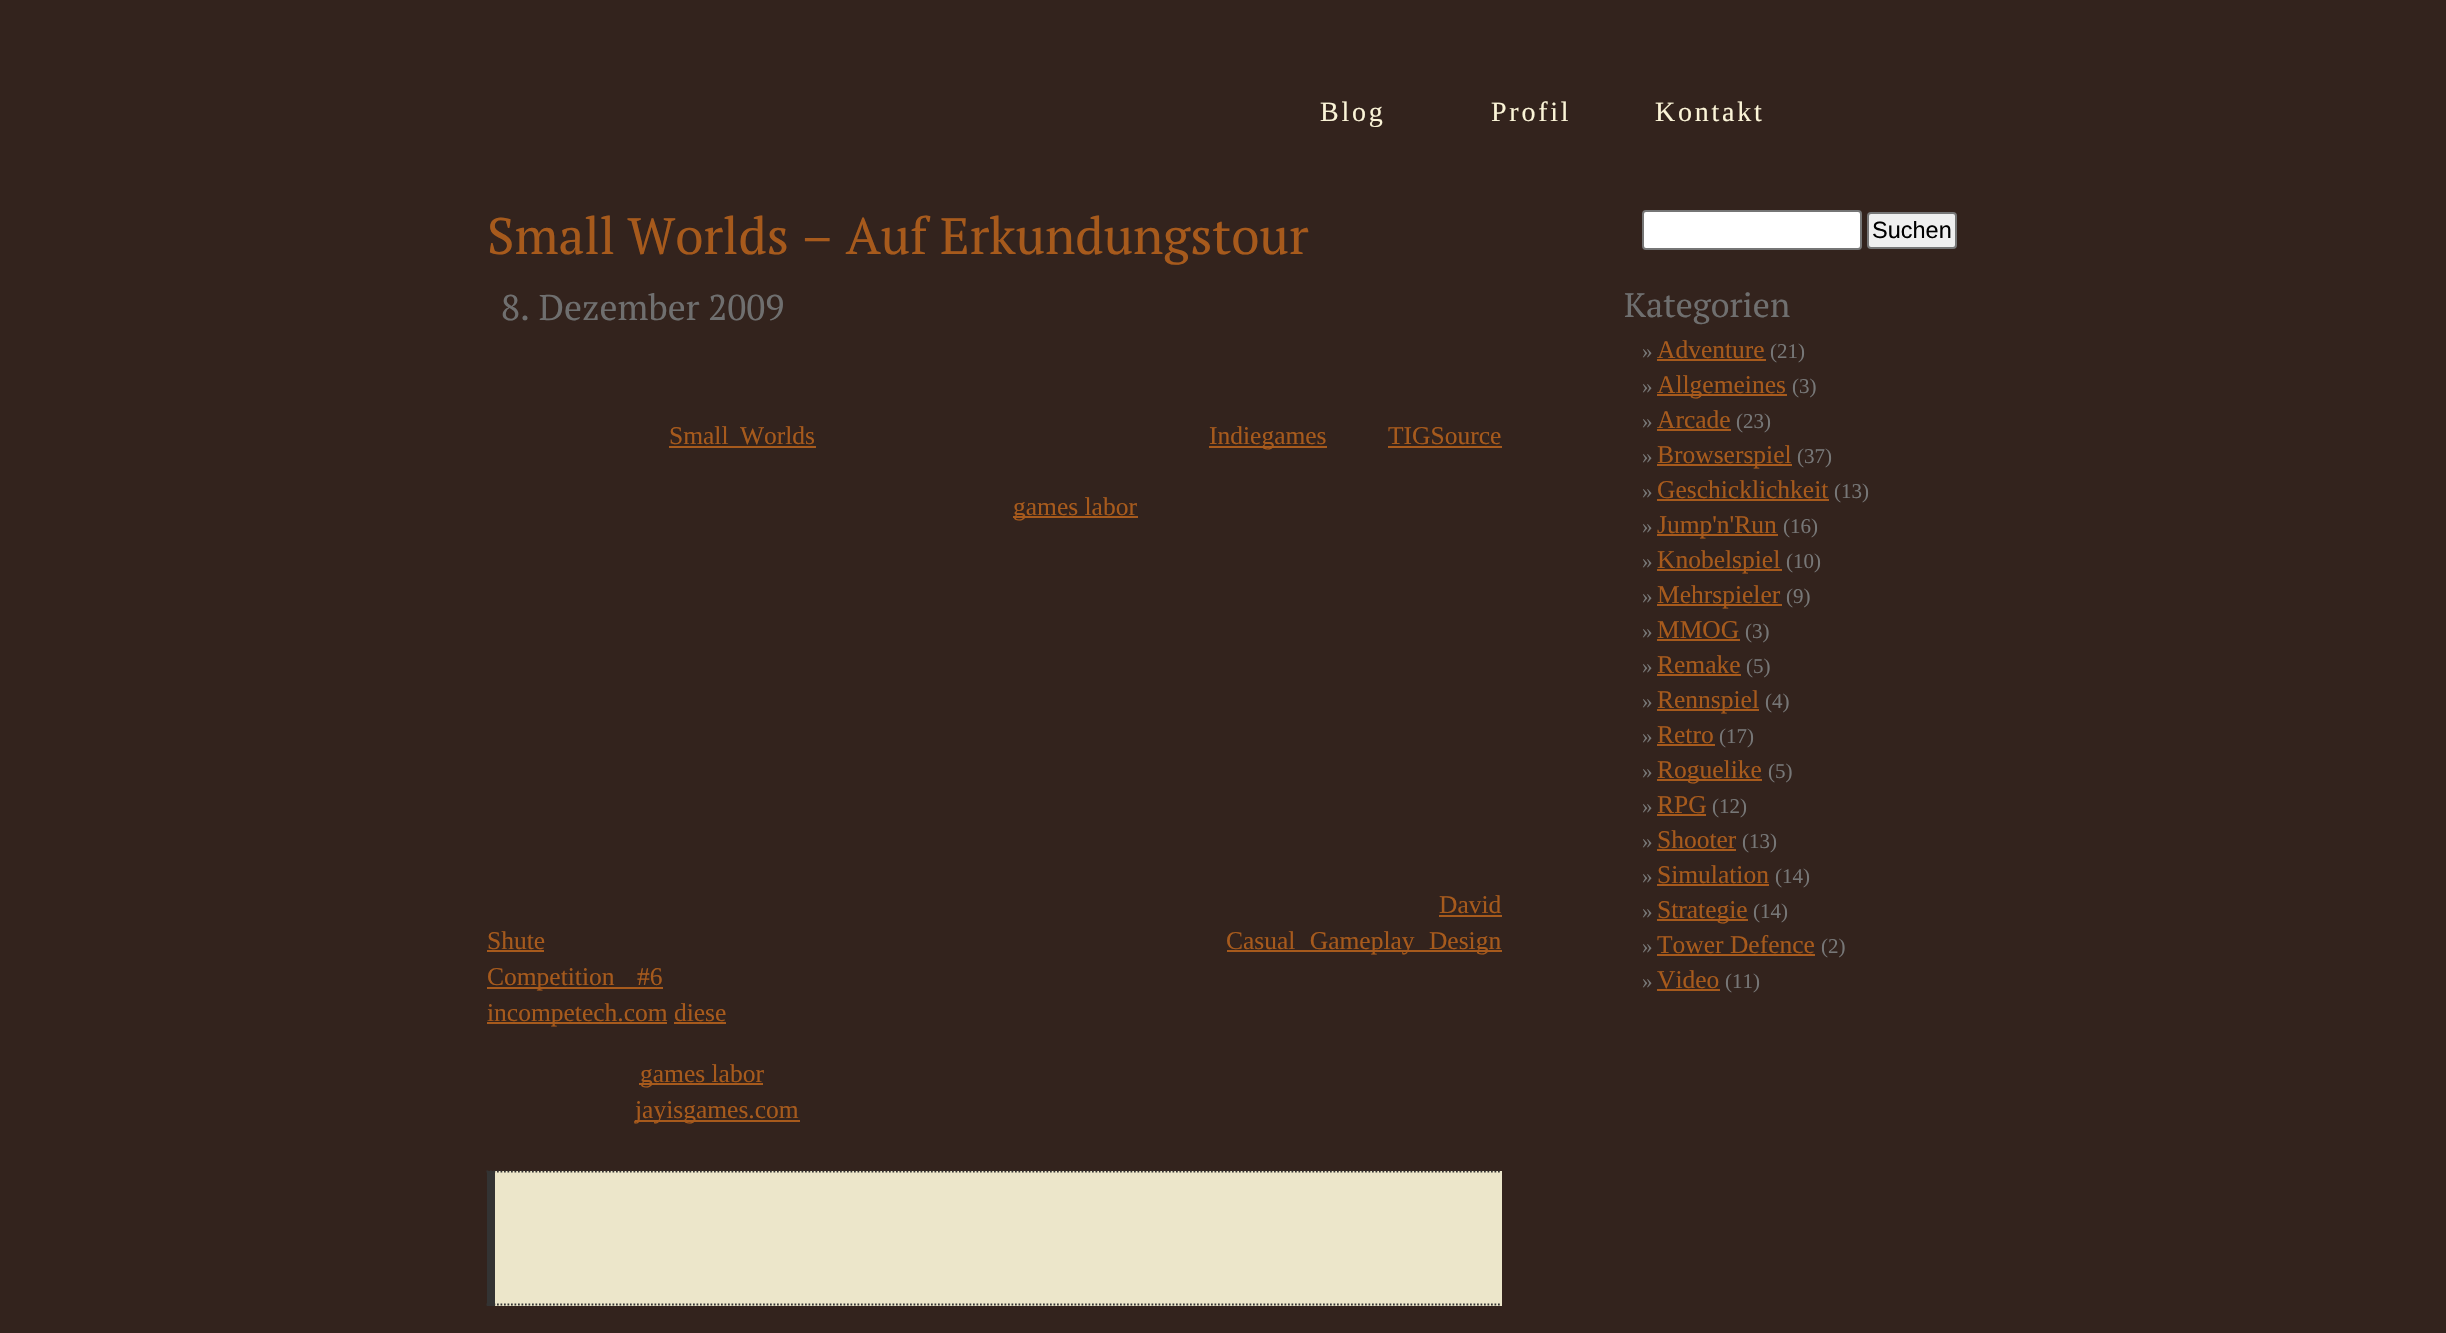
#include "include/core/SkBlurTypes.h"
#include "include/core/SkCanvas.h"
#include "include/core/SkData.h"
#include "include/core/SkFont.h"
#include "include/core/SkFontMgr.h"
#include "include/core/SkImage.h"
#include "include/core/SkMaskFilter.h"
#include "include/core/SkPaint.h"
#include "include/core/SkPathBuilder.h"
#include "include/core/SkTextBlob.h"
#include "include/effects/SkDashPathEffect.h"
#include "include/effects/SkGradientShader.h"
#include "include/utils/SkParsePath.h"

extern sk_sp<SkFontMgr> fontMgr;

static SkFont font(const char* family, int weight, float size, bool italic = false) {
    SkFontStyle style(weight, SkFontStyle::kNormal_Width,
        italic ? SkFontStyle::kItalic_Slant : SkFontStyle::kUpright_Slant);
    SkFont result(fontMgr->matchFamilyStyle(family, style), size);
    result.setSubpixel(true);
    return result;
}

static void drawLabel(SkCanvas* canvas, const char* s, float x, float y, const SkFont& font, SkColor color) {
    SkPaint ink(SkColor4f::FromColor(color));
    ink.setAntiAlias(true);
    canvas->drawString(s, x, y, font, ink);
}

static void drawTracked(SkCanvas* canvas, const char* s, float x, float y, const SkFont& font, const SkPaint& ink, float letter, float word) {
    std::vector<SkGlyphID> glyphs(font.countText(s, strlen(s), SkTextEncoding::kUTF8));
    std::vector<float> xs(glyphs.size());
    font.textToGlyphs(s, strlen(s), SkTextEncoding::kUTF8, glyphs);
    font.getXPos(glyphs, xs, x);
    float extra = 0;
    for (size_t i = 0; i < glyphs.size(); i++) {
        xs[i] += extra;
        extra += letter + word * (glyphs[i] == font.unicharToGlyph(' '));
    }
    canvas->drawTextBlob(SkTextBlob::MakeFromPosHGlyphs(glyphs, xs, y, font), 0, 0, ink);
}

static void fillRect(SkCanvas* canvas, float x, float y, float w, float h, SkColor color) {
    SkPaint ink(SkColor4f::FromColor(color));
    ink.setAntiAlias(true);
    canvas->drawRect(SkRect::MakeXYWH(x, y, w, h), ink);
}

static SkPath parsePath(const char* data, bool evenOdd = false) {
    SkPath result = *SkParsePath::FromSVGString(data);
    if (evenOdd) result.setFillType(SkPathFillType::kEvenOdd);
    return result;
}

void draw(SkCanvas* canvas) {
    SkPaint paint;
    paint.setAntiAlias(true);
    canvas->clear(0xFF33231D);
    SkFont font1 = font("Liberation Serif", 400, 28);
    paint.setColor(0xFFFBF4D7);
    drawTracked(canvas, "Blog", 1320, 121, font1, paint, 2.75f, 0);
    drawTracked(canvas, "Profil", 1491, 121, font1, paint, 2.75f, 0);
    drawTracked(canvas, "Kontakt", 1655, 121, font1, paint, 2.75f, 0);
    SkFont font2 = font("PT Serif", 400, 51.1f);
    drawLabel(canvas, "Small Worlds – Auf Erkundungstour", 487, 254, font2, 0xFFA75A1C);
    SkFont font3 = font("PT Serif", 400, 35.75f);
    drawLabel(canvas, "8. Dezember 2009", 501, 320, font3, 0xFF6F6F6F);
    SkFont font4 = font("Liberation Serif", 400, 25.5f);
    paint.setColor(0xFFA75A1C);
    drawTracked(canvas, "Small Worlds", 669, 444, font4, paint, 0, 5);
    fillRect(canvas, 669, 446, 147, 2, 0xFFA75A1C);
    fillRect(canvas, 1209, 446, 118, 2, 0xFFA75A1C);
    drawLabel(canvas, "Indiegames", 1209, 444, font4, 0xFFA75A1C);
    drawLabel(canvas, "TIGSource", 1388, 444, font4, 0xFFA75A1C);
    fillRect(canvas, 1388, 446, 114, 2, 0xFFA75A1C);
    fillRect(canvas, 1013, 516, 125, 2, 0xFFA75A1C);
    drawLabel(canvas, "games labor", 1013, 515, font4, 0xFFA75A1C);
    drawLabel(canvas, "David", 1439, 913, font4, 0xFFA75A1C);
    fillRect(canvas, 1439, 915, 63, 2, 0xFFA75A1C);
    drawLabel(canvas, "Shute", 487, 949, font4, 0xFFA75A1C);
    fillRect(canvas, 487, 950, 57, 2, 0xFFA75A1C);
    fillRect(canvas, 1227, 950, 275, 2, 0xFFA75A1C);
    drawTracked(canvas, "Casual Gameplay Design", 1226, 949, font4, paint, 0, 8);
    fillRect(canvas, 487, 987, 176, 2, 0xFFA75A1C);
    drawTracked(canvas, "Competition #6", 487, 985, font4, paint, 0, 16);
    fillRect(canvas, 487, 1022, 180, 2, 0xFFA75A1C);
    drawLabel(canvas, "incompetech.com diese", 487, 1021, font4, 0xFFA75A1C);
    fillRect(canvas, 674, 1022, 52, 2, 0xFFA75A1C);
    fillRect(canvas, 639, 1083, 124, 2, 0xFFA75A1C);
    drawLabel(canvas, "games labor", 640, 1082, font4, 0xFFA75A1C);
    fillRect(canvas, 635, 1120, 165, 2, 0xFFA75A1C);
    drawLabel(canvas, "jayisgames.com", 635, 1118, font4, 0xFFA75A1C);
    fillRect(canvas, 495, 1171, 1007, 135, 0xFFECE6CA);
    paint.setStroke(true);
    paint.setStrokeWidth(1.8f);
    paint.setColor(0xFF333333);
    paint.setPathEffect(SkDashPathEffect::Make({{1.75f, 1.75f}}, 0));
    canvas->drawPath(parsePath("M486.5 1171.5H1501.5"), paint);
    paint.setPathEffect(nullptr);
    paint.setPathEffect(SkDashPathEffect::Make({{1.75f, 1.75f}}, 0));
    canvas->drawPath(parsePath("M486.5 1304.5H1501.5"), paint);
    paint.setPathEffect(nullptr);
    fillRect(canvas, 487, 1171, 8, 135, 0xFF333333);
    paint.setStroke(false);
    paint.setColor(0xFFFFFFFF);
    canvas->drawRoundRect(SkRect::MakeXYWH(1643, 211, 218, 38), 3, 3, paint);
    paint.setStroke(true);
    paint.setStrokeWidth(2);
    paint.setColor(0xFF767676);
    canvas->drawRoundRect(SkRect::MakeXYWH(1643, 211, 218, 38), 3, 3, paint);
    paint.setStroke(false);
    paint.setColor(0xFFEFEFEF);
    canvas->drawRoundRect(SkRect::MakeXYWH(1868, 213, 88, 35), 3, 3, paint);
    paint.setStroke(true);
    paint.setColor(0xFF767676);
    canvas->drawRoundRect(SkRect::MakeXYWH(1868, 213, 88, 35), 3, 3, paint);
    SkFont font5 = font("Liberation Sans", 400, 23.5f);
    drawLabel(canvas, "Suchen", 1872, 238, font5, 0xFF000000);
    SkFont font6 = font("PT Serif", 400, 34);
    drawLabel(canvas, "Kategorien", 1624, 317, font6, 0xFF6F6F6F);
    SkFont font7 = font("Liberation Serif", 400, 21);
    drawLabel(canvas, "»", 1642, 358, font7, 0xFF777777);
    drawLabel(canvas, "Adventure", 1657, 358, font4, 0xFFA75A1C);
    fillRect(canvas, 1657, 359, 109, 2, 0xFFA75A1C);
    drawLabel(canvas, "(21)", 1770, 358, font7, 0xFF777777);
    drawLabel(canvas, "»", 1642, 393, font7, 0xFF777777);
    fillRect(canvas, 1657, 394, 130, 2, 0xFFA75A1C);
    drawLabel(canvas, "Allgemeines", 1657, 393, font4, 0xFFA75A1C);
    drawLabel(canvas, "(3)", 1792, 393, font7, 0xFF777777);
    drawLabel(canvas, "»", 1642, 428, font7, 0xFF777777);
    drawLabel(canvas, "Arcade", 1657, 428, font4, 0xFFA75A1C);
    fillRect(canvas, 1657, 429, 74, 2, 0xFFA75A1C);
    drawLabel(canvas, "(23)", 1736, 428, font7, 0xFF777777);
    drawLabel(canvas, "»", 1642, 463, font7, 0xFF777777);
    fillRect(canvas, 1657, 464, 135, 2, 0xFFA75A1C);
    drawLabel(canvas, "Browserspiel", 1657, 463, font4, 0xFFA75A1C);
    drawLabel(canvas, "(37)", 1797, 463, font7, 0xFF777777);
    drawLabel(canvas, "»", 1642, 498, font7, 0xFF777777);
    drawLabel(canvas, "Geschicklichkeit", 1657, 498, font4, 0xFFA75A1C);
    fillRect(canvas, 1657, 499, 172, 2, 0xFFA75A1C);
    drawLabel(canvas, "(13)", 1834, 498, font7, 0xFF777777);
    drawLabel(canvas, "»", 1642, 533, font7, 0xFF777777);
    fillRect(canvas, 1657, 534, 121, 2, 0xFFA75A1C);
    drawLabel(canvas, "Jump'n'Run", 1657, 533, font4, 0xFFA75A1C);
    drawLabel(canvas, "(16)", 1783, 533, font7, 0xFF777777);
    drawLabel(canvas, "»", 1642, 568, font7, 0xFF777777);
    fillRect(canvas, 1657, 569, 125, 2, 0xFFA75A1C);
    drawLabel(canvas, "Knobelspiel", 1657, 568, font4, 0xFFA75A1C);
    drawLabel(canvas, "(10)", 1786, 568, font7, 0xFF777777);
    drawLabel(canvas, "»", 1642, 603, font7, 0xFF777777);
    fillRect(canvas, 1657, 604, 125, 2, 0xFFA75A1C);
    drawLabel(canvas, "Mehrspieler", 1657, 603, font4, 0xFFA75A1C);
    drawLabel(canvas, "(9)", 1786, 603, font7, 0xFF777777);
    drawLabel(canvas, "»", 1642, 638, font7, 0xFF777777);
    drawLabel(canvas, "MMOG", 1657, 638, font4, 0xFFA75A1C);
    fillRect(canvas, 1657, 639, 83, 2, 0xFFA75A1C);
    drawLabel(canvas, "(3)", 1745, 638, font7, 0xFF777777);
    drawLabel(canvas, "»", 1642, 673, font7, 0xFF777777);
    drawLabel(canvas, "Remake", 1657, 673, font4, 0xFFA75A1C);
    fillRect(canvas, 1657, 674, 84, 2, 0xFFA75A1C);
    drawLabel(canvas, "(5)", 1746, 673, font7, 0xFF777777);
    drawLabel(canvas, "»", 1642, 708, font7, 0xFF777777);
    fillRect(canvas, 1657, 709, 102, 2, 0xFFA75A1C);
    drawLabel(canvas, "Rennspiel", 1657, 708, font4, 0xFFA75A1C);
    drawLabel(canvas, "(4)", 1765, 708, font7, 0xFF777777);
    drawLabel(canvas, "»", 1642, 743, font7, 0xFF777777);
    drawLabel(canvas, "Retro", 1657, 743, font4, 0xFFA75A1C);
    fillRect(canvas, 1657, 744, 58, 2, 0xFFA75A1C);
    drawLabel(canvas, "(17)", 1719, 743, font7, 0xFF777777);
    drawLabel(canvas, "»", 1642, 778, font7, 0xFF777777);
    fillRect(canvas, 1657, 779, 105, 2, 0xFFA75A1C);
    drawLabel(canvas, "Roguelike", 1657, 778, font4, 0xFFA75A1C);
    drawLabel(canvas, "(5)", 1768, 778, font7, 0xFF777777);
    drawLabel(canvas, "»", 1642, 813, font7, 0xFF777777);
    drawLabel(canvas, "RPG", 1657, 813, font4, 0xFFA75A1C);
    fillRect(canvas, 1657, 814, 49, 2, 0xFFA75A1C);
    drawLabel(canvas, "(12)", 1712, 813, font7, 0xFF777777);
    drawLabel(canvas, "»", 1642, 848, font7, 0xFF777777);
    drawLabel(canvas, "Shooter", 1657, 848, font4, 0xFFA75A1C);
    fillRect(canvas, 1657, 849, 79, 2, 0xFFA75A1C);
    drawLabel(canvas, "(13)", 1742, 848, font7, 0xFF777777);
    drawLabel(canvas, "»", 1642, 883, font7, 0xFF777777);
    drawLabel(canvas, "Simulation", 1657, 883, font4, 0xFFA75A1C);
    fillRect(canvas, 1657, 884, 112, 2, 0xFFA75A1C);
    drawLabel(canvas, "(14)", 1775, 883, font7, 0xFF777777);
    drawLabel(canvas, "»", 1642, 918, font7, 0xFF777777);
    fillRect(canvas, 1657, 919, 91, 2, 0xFFA75A1C);
    drawLabel(canvas, "Strategie", 1657, 918, font4, 0xFFA75A1C);
    drawLabel(canvas, "(14)", 1753, 918, font7, 0xFF777777);
    drawLabel(canvas, "»", 1642, 953, font7, 0xFF777777);
    drawLabel(canvas, "Tower Defence", 1657, 953, font4, 0xFFA75A1C);
    fillRect(canvas, 1657, 954, 158, 2, 0xFFA75A1C);
    drawLabel(canvas, "(2)", 1821, 953, font7, 0xFF777777);
    drawLabel(canvas, "»", 1642, 988, font7, 0xFF777777);
    drawLabel(canvas, "Video", 1657, 988, font4, 0xFFA75A1C);
    fillRect(canvas, 1657, 989, 63, 2, 0xFFA75A1C);
    drawLabel(canvas, "(11)", 1725, 988, font7, 0xFF777777);
}
